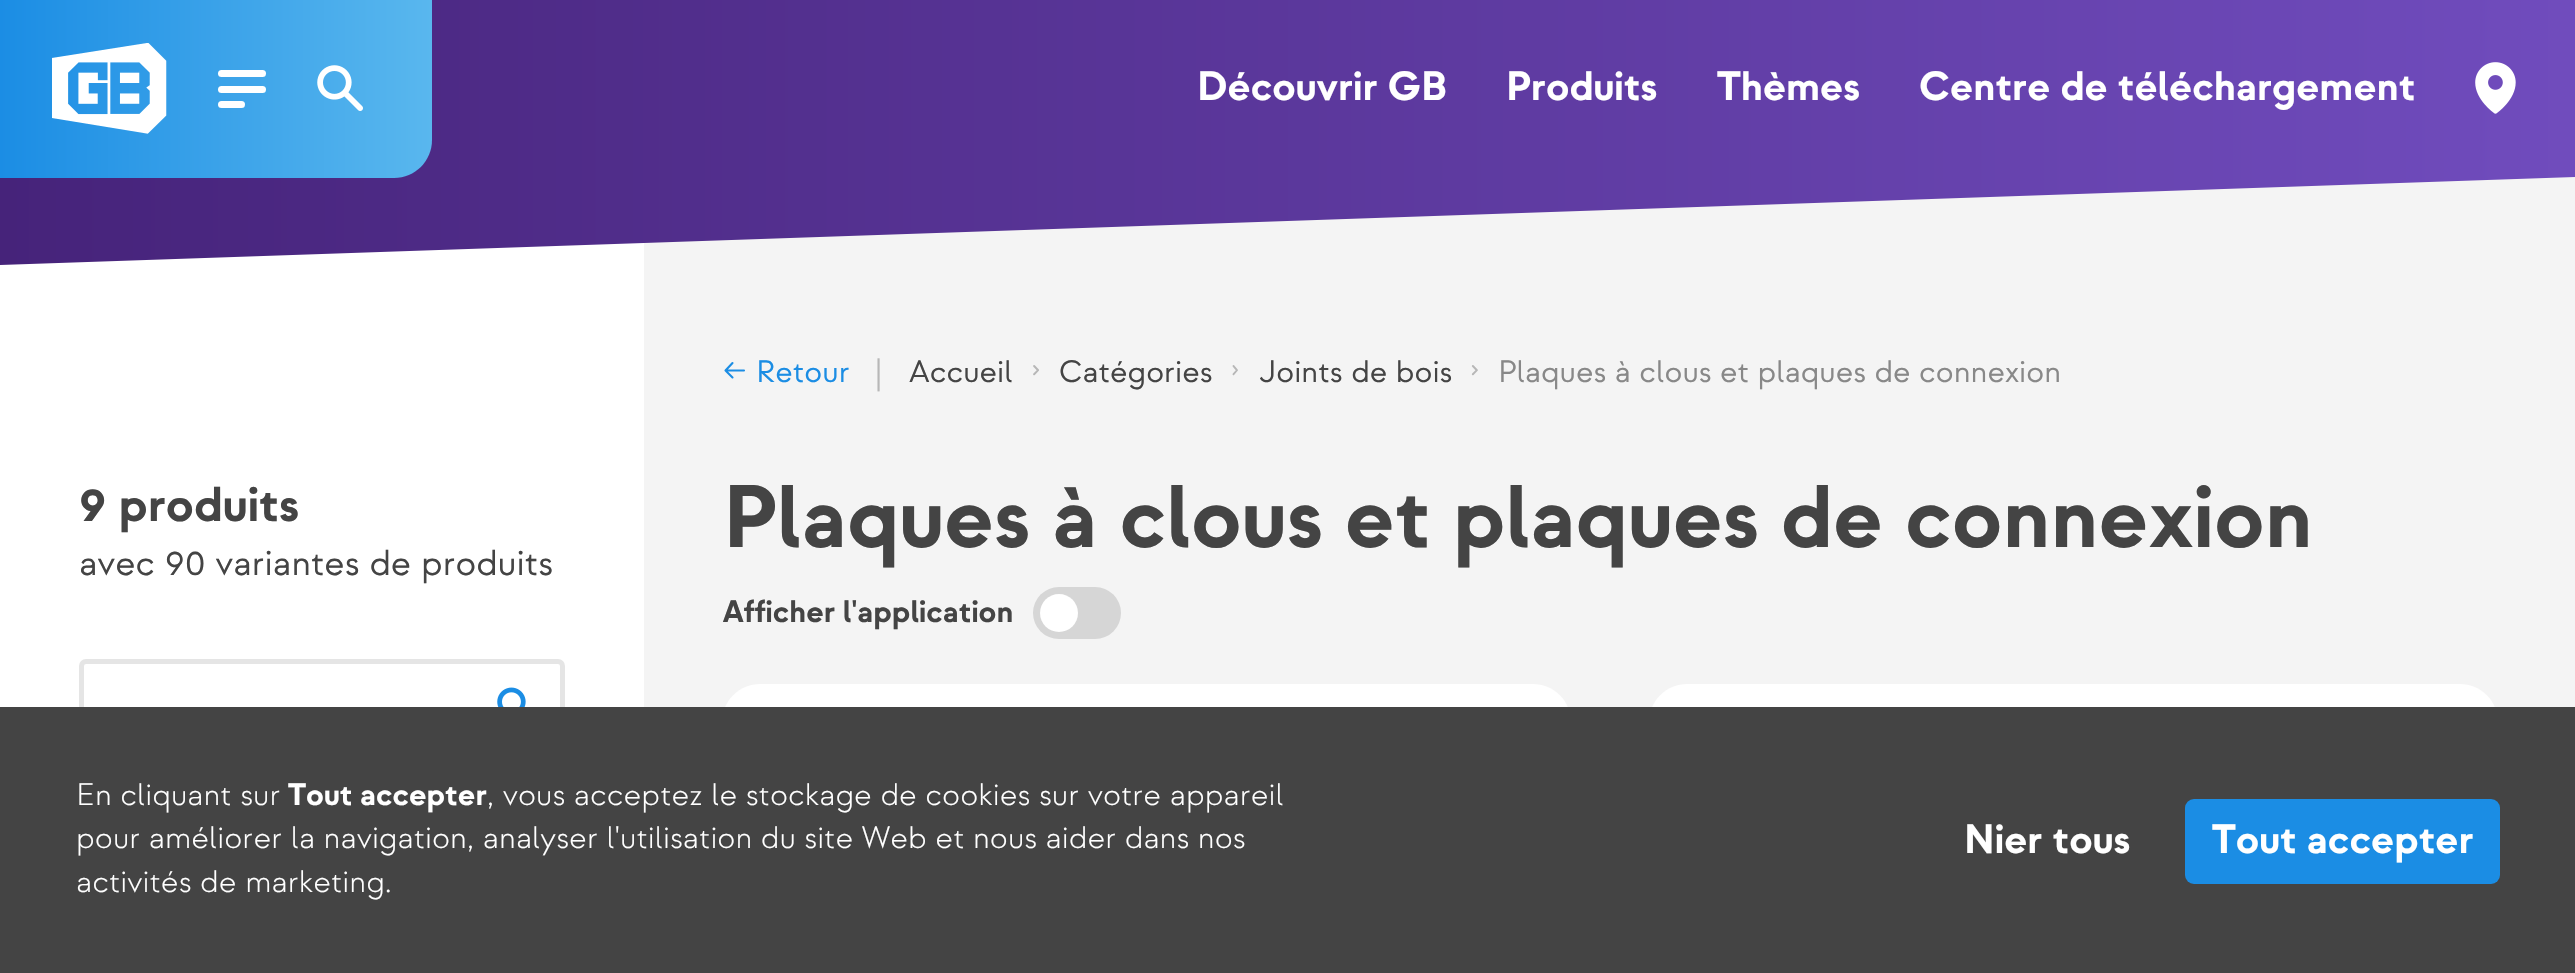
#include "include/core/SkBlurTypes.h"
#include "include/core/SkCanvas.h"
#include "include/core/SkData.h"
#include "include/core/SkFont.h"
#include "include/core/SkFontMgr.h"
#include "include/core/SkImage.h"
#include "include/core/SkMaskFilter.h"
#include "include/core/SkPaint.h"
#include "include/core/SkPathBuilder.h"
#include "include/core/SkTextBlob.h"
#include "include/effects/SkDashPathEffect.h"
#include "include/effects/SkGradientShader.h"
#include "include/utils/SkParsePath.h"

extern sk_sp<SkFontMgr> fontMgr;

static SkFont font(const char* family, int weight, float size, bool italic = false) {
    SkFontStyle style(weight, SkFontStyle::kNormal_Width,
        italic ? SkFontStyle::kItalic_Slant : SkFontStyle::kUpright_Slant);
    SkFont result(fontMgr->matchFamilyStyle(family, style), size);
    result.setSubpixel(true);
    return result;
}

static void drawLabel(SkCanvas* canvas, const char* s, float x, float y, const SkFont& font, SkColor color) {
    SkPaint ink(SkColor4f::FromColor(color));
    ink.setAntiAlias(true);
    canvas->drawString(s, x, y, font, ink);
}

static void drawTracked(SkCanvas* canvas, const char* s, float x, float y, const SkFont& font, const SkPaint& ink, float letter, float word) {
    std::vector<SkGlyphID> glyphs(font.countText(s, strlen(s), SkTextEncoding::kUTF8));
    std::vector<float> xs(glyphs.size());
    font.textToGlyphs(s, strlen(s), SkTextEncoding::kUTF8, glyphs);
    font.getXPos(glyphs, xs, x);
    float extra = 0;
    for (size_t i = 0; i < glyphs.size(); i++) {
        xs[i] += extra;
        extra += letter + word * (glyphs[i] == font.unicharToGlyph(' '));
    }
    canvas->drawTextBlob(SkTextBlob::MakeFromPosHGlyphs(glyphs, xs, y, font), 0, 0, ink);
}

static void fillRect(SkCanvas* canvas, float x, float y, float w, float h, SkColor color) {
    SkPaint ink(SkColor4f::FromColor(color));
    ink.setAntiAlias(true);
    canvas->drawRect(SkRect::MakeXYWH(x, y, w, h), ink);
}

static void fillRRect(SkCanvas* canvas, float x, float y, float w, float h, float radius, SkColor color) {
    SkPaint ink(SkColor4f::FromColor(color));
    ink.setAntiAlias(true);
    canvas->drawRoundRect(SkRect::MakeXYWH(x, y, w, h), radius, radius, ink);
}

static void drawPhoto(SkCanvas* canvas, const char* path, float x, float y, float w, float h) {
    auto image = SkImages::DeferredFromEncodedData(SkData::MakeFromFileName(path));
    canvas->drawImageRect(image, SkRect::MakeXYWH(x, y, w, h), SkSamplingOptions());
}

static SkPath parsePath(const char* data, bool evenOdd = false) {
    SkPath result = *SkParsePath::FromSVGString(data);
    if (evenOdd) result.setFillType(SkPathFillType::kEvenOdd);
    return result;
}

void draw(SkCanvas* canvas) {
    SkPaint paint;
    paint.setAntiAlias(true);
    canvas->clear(0xFFF4F4F4);
    fillRect(canvas, 0, 243, 644, 464, 0xFFFFFFFF);
    {
        const SkColor colors[] = {0xFF46237A, 0xFF704CBD};
        const float stops[] = {0, 1};
        const SkPoint ends[] = {{-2.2f, 133}, {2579, 133}};
        paint.setShader(SkGradientShader::MakeLinear(ends, colors, stops, 2, SkTileMode::kClamp));
        paint.setAlpha(255);
    }
    canvas->drawPath(parsePath("M0 0V265L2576 177V0Z"), paint);
    {
        const SkColor colors[] = {0xFF1B8DE4, 0xFF59B7EE};
        const float stops[] = {0, 1};
        const SkPoint ends[] = {{0, 89}, {432, 89}};
        paint.setShader(SkGradientShader::MakeLinear(ends, colors, stops, 2, SkTileMode::kClamp));
        paint.setAlpha(255);
    }
    canvas->drawPath(parsePath("M0 0H432V140C432 161 415 178 394 178H0Z"), paint);
    drawPhoto(canvas, "assets/img1.png", 52, 43, 115, 91);
    fillRRect(canvas, 218, 70, 48, 7, 3.5f, 0xFFFFFFFF);
    fillRRect(canvas, 218, 86, 48, 7, 3.5f, 0xFFFFFFFF);
    fillRRect(canvas, 218, 101, 27, 7, 3.5f, 0xFFFFFFFF);
    drawPhoto(canvas, "assets/img2.png", 317, 65, 46, 46);
    SkFont font1 = font("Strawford", 700, 40.9f);
    drawLabel(canvas, "Découvrir GB", 1197, 100, font1, 0xFFFFFFFF);
    drawLabel(canvas, "Produits", 1506, 100, font1, 0xFFFFFFFF);
    drawLabel(canvas, "Thèmes", 1717, 100, font1, 0xFFFFFFFF);
    drawLabel(canvas, "Centre de téléchargement", 1919, 100, font1, 0xFFFFFFFF);
    drawPhoto(canvas, "assets/img3.png", 2475, 62, 41, 52);
    SkFont font2 = font("Strawford", 700, 49);
    drawLabel(canvas, "9 produits", 79, 521, font2, 0xFF444444);
    SkFont font3 = font("Strawford", 400, 36);
    drawLabel(canvas, "avec 90 variantes de produits", 79, 575, font3, 0xFF444444);
    paint.setStroke(true);
    paint.setStrokeWidth(5);
    paint.setShader(nullptr);
    paint.setColor(0xFFE5E5E5);
    canvas->drawRoundRect(SkRect::MakeXYWH(81.5f, 661.5f, 481, 90), 4.5f, 4.5f, paint);
    drawPhoto(canvas, "assets/img4.png", 497, 687, 29, 20);
    SkFont font4 = font("Strawford", 400, 31.1f);
    drawLabel(canvas, "Retour", 756, 382, font4, 0xFF1B8DE4);
    paint.setStrokeWidth(2.1f);
    paint.setStrokeCap(SkPaint::kRound_Cap);
    paint.setStrokeJoin(SkPaint::kRound_Join);
    paint.setColor(0xFF1B8DE4);
    canvas->drawPath(parsePath("M732.5 377.5L725.5 370.5M725.5 370.5L732.5 363M725.5 370.5H744"), paint);
    drawLabel(canvas, "|", 876, 382, font4, 0xFFB7B7B7);
    drawLabel(canvas, "Accueil", 909, 382, font4, 0xFF444444);
    drawPhoto(canvas, "assets/img5.png", 1033, 365, 6, 11);
    drawLabel(canvas, "Catégories", 1059, 382, font4, 0xFF444444);
    drawPhoto(canvas, "assets/img6.png", 1232, 365, 6, 11);
    drawLabel(canvas, "Joints de bois", 1259, 382, font4, 0xFF444444);
    drawPhoto(canvas, "assets/img7.png", 1471, 365, 7, 11);
    paint.setStroke(false);
    paint.setColor(0xFF888888);
    drawTracked(canvas, "Plaques à clous et plaques de connexion", 1498, 382, font4, paint, 0, -0.1f);
    SkFont font5 = font("Strawford", 700, 88.4f);
    drawLabel(canvas, "Plaques à clous et plaques de connexion", 723, 547, font5, 0xFF444444);
    SkFont font6 = font("Strawford", 700, 31.1f);
    drawLabel(canvas, "Afficher l'application", 723, 622, font6, 0xFF444444);
    fillRRect(canvas, 1033, 587, 88, 52, 26, 0xFFD6D6D6);
    paint.setColor(0xFFFFFFFF);
    canvas->drawCircle(1059, 613, 19, paint);
    canvas->drawPath(parsePath("M760 684H1533C1554 684 1571 701 1571 722V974H722V722C722 701 739 684 760 684Z"), paint);
    canvas->drawPath(parsePath("M1687 684H2460C2481 684 2498 701 2498 722V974H1649V722C1649 701 1666 684 1687 684Z"), paint);
    fillRect(canvas, 0, 707, 2575, 266, 0xFF444444);
    SkFont font7 = font("Strawford", 300, 31.1f);
    drawLabel(canvas, "En cliquant sur", 76, 805, font7, 0xFFFFFFFF);
    drawLabel(canvas, "Tout accepter", 288, 805, font6, 0xFFFFFFFF);
    drawTracked(canvas, ", vous acceptez le stockage de cookies sur votre appareil", 487, 805, font7, paint, 0, -0.1f);
    drawTracked(canvas, "pour améliorer la navigation, analyser l'utilisation du site Web et nous aider dans nos", 76, 848, font7, paint, 0, -0.1f);
    drawLabel(canvas, "activités de marketing.", 76, 892, font7, 0xFFFFFFFF);
    drawLabel(canvas, "Nier tous", 1964, 853, font1, 0xFFFFFFFF);
    fillRRect(canvas, 2185, 799, 315, 85, 9, 0xFF1B8DE4);
    drawLabel(canvas, "Tout accepter", 2212, 853, font1, 0xFFFFFFFF);
}
